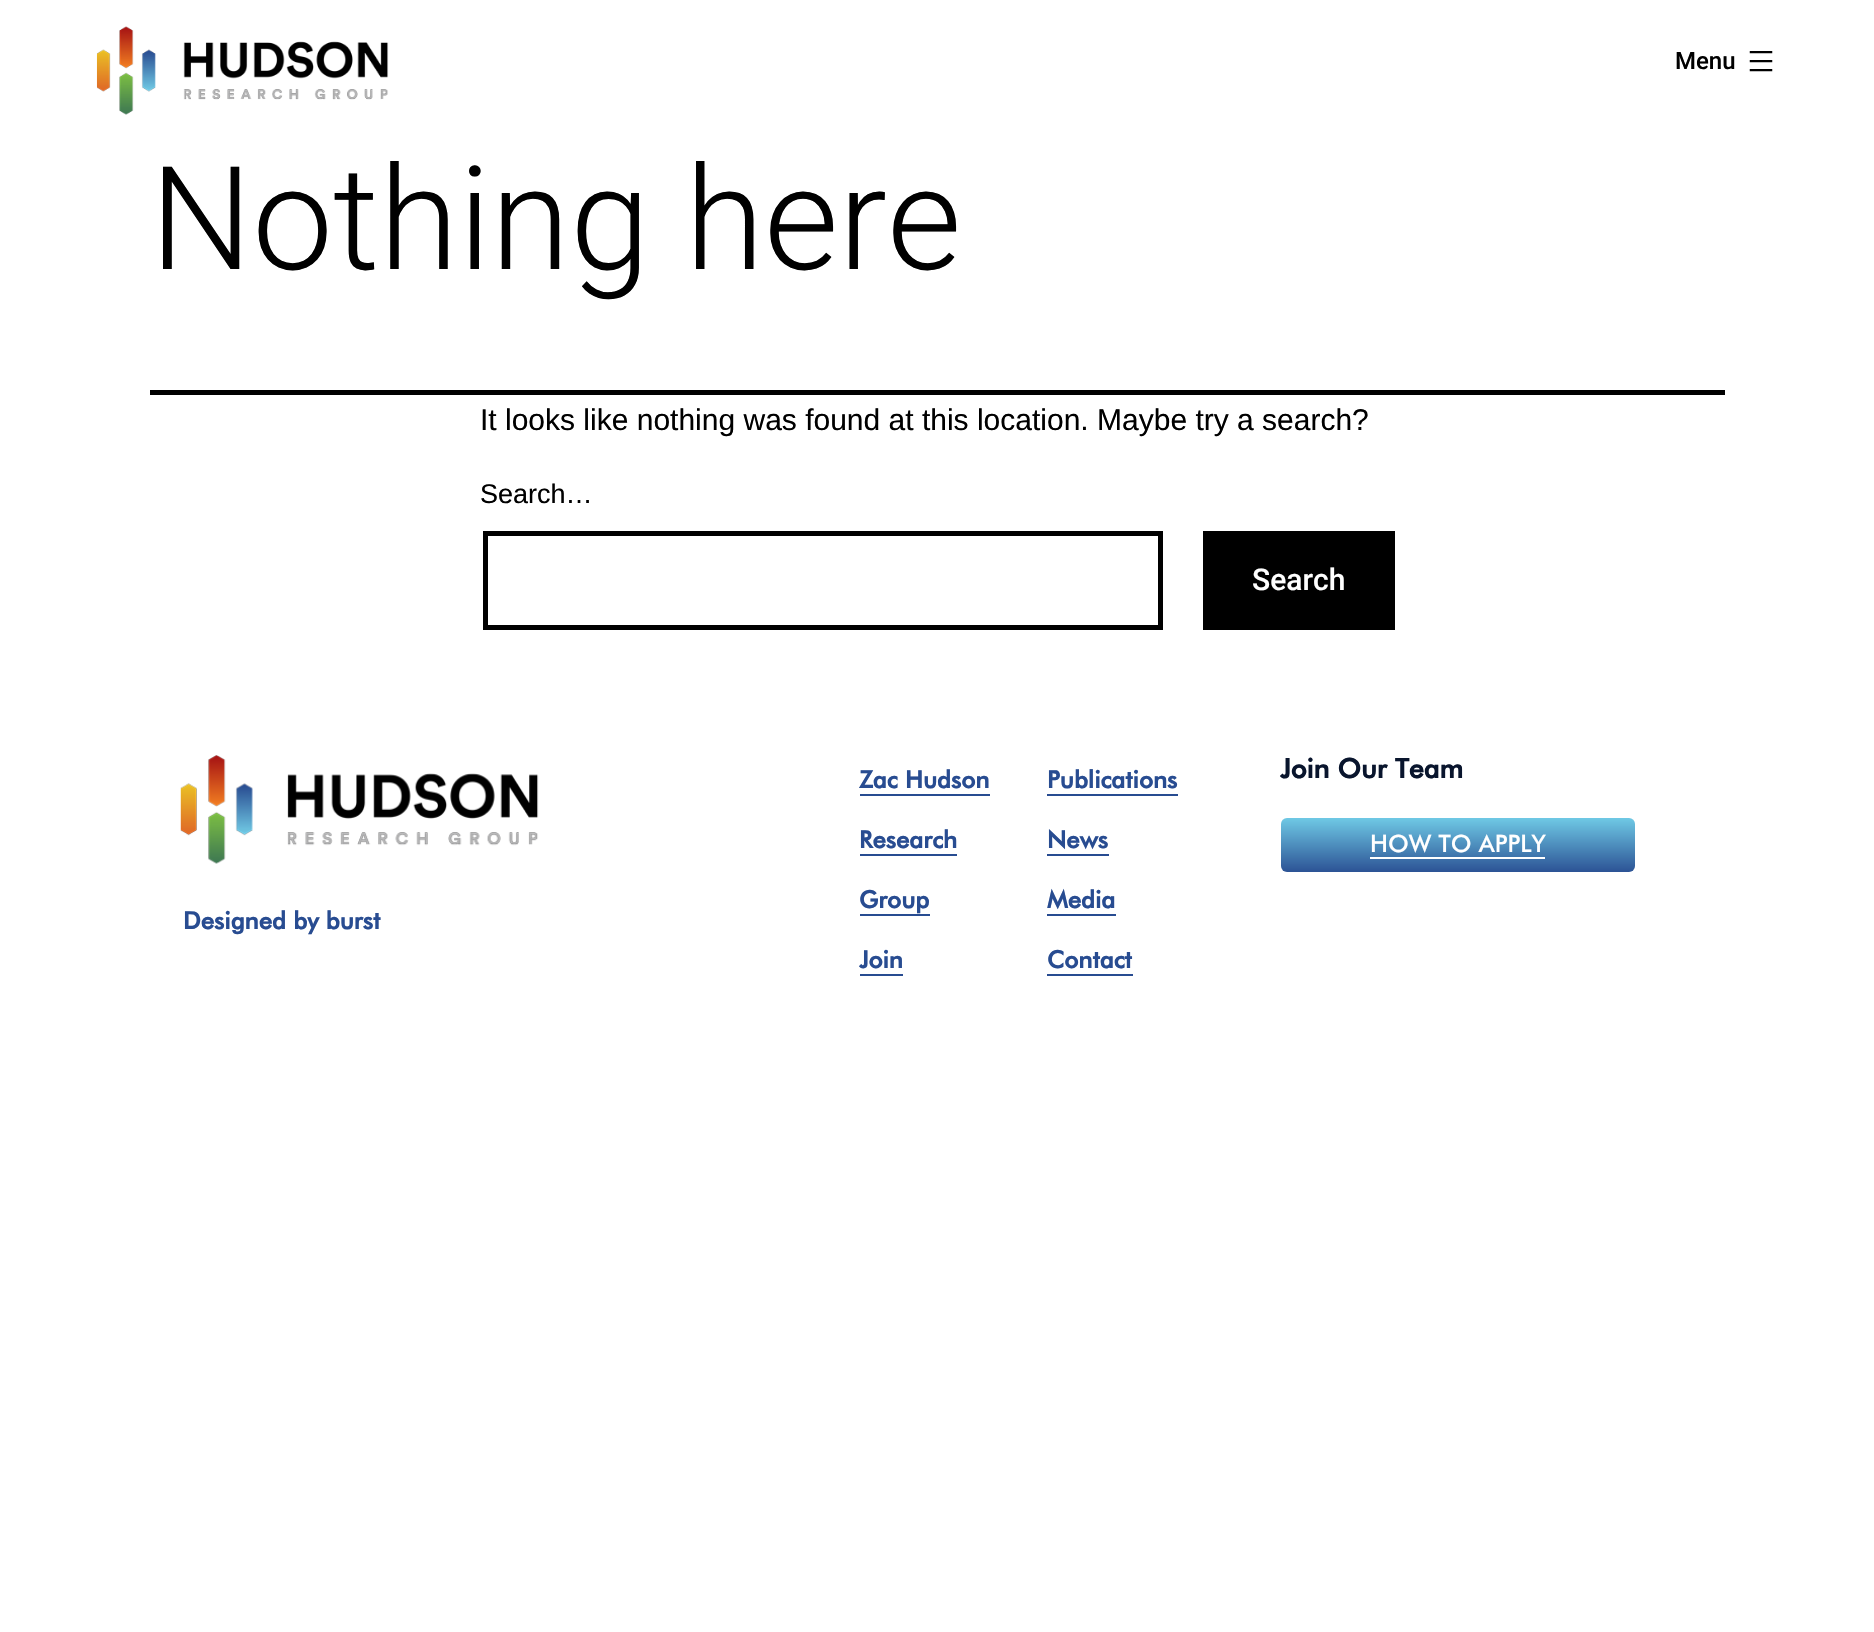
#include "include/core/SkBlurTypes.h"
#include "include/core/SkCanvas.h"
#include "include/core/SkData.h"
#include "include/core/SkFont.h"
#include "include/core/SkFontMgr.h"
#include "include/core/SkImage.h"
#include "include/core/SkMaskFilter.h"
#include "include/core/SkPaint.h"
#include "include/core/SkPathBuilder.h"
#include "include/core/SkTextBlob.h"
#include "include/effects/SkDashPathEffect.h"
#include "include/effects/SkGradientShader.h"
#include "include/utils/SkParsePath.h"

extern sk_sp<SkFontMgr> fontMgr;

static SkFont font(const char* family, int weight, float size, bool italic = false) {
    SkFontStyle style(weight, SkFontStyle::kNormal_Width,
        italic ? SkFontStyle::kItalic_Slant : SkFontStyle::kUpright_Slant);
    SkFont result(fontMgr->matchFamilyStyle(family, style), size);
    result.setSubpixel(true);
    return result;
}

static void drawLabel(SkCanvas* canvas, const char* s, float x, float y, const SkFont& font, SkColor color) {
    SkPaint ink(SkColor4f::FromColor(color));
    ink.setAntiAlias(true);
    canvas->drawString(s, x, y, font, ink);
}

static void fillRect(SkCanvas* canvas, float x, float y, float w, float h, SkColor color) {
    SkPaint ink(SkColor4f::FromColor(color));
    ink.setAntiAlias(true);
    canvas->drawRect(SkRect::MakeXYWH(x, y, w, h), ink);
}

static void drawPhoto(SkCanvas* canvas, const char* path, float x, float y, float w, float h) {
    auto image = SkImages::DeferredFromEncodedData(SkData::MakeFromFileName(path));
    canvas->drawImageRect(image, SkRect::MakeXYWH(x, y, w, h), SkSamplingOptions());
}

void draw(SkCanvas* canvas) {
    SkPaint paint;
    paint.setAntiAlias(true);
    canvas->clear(0xFFFFFFFF);
    drawPhoto(canvas, "assets/img1.png", 96, 26, 293, 89);
    SkFont font1 = font("Roboto", 500, 24);
    drawLabel(canvas, "Menu", 1675, 69, font1, 0xFF000000);
    drawPhoto(canvas, "assets/img2.png", 1749, 51, 24, 21);
    fillRect(canvas, 150, 390, 1575, 5, 0xFF000000);
    SkFont font2 = font("Roboto", 300, 144);
    drawLabel(canvas, "Nothing here", 150, 269, font2, 0xFF000000);
    SkFont font3 = font("Liberation Sans", 400, 30);
    drawLabel(canvas, "It looks like nothing was found at this location. Maybe try a search?", 480, 430, font3, 0xFF000000);
    SkFont font4 = font("Liberation Sans", 400, 27);
    drawLabel(canvas, "Search…", 480, 503, font4, 0xFF000000);
    paint.setStroke(true);
    paint.setStrokeWidth(5);
    paint.setColor(0xFF000000);
    canvas->drawRect(SkRect::MakeXYWH(485.5f, 533.5f, 675, 94), paint);
    fillRect(canvas, 1203, 531, 192, 99, 0xFF000000);
    SkFont font5 = font("Roboto", 500, 30);
    drawLabel(canvas, "Search", 1252, 590, font5, 0xFFFFFFFF);
    drawPhoto(canvas, "assets/img3.png", 180, 755, 359, 109);
    SkFont font6 = font("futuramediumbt", 700, 24);
    drawLabel(canvas, "Designed by burst", 183, 929, font6, 0xFF284C91);
    drawLabel(canvas, "Zac Hudson", 859, 788, font6, 0xFF284C91);
    fillRect(canvas, 860, 794, 130, 2, 0xFF284C91);
    drawLabel(canvas, "Publications", 1047, 788, font6, 0xFF284C91);
    fillRect(canvas, 1047, 794, 131, 2, 0xFF284C91);
    drawLabel(canvas, "Research", 859, 848, font6, 0xFF284C91);
    fillRect(canvas, 860, 854, 97, 2, 0xFF284C91);
    drawLabel(canvas, "News", 1047, 848, font6, 0xFF284C91);
    fillRect(canvas, 1047, 854, 62, 2, 0xFF284C91);
    drawLabel(canvas, "Group", 859, 908, font6, 0xFF284C91);
    fillRect(canvas, 860, 914, 70, 2, 0xFF284C91);
    drawLabel(canvas, "Media", 1047, 908, font6, 0xFF284C91);
    fillRect(canvas, 1047, 914, 69, 2, 0xFF284C91);
    drawLabel(canvas, "Join", 859, 968, font6, 0xFF284C91);
    fillRect(canvas, 860, 974, 43, 2, 0xFF284C91);
    drawLabel(canvas, "Contact", 1047, 968, font6, 0xFF284C91);
    fillRect(canvas, 1047, 974, 86, 2, 0xFF284C91);
    SkFont font7 = font("futuramediumbt", 700, 27);
    drawLabel(canvas, "Join Our Team", 1280, 778, font7, 0xFF09152D);
    paint.setStroke(false);
    {
        const SkColor colors[] = {0xFF2C5395, 0xFF6FC9E5};
        const float stops[] = {0, 1};
        const SkPoint ends[] = {{1458, 872}, {1458, 818}};
        paint.setShader(SkGradientShader::MakeLinear(ends, colors, stops, 2, SkTileMode::kClamp));
        paint.setAlpha(255);
    }
    canvas->drawRoundRect(SkRect::MakeXYWH(1281, 818, 354, 54), 6, 6, paint);
    SkFont font8 = font("futuramediumbt", 500, 24);
    drawLabel(canvas, "HOW TO APPLY", 1370, 852, font8, 0xFFFFFFFF);
    fillRect(canvas, 1370, 857, 175, 2, 0xFFFFFFFF);
}
